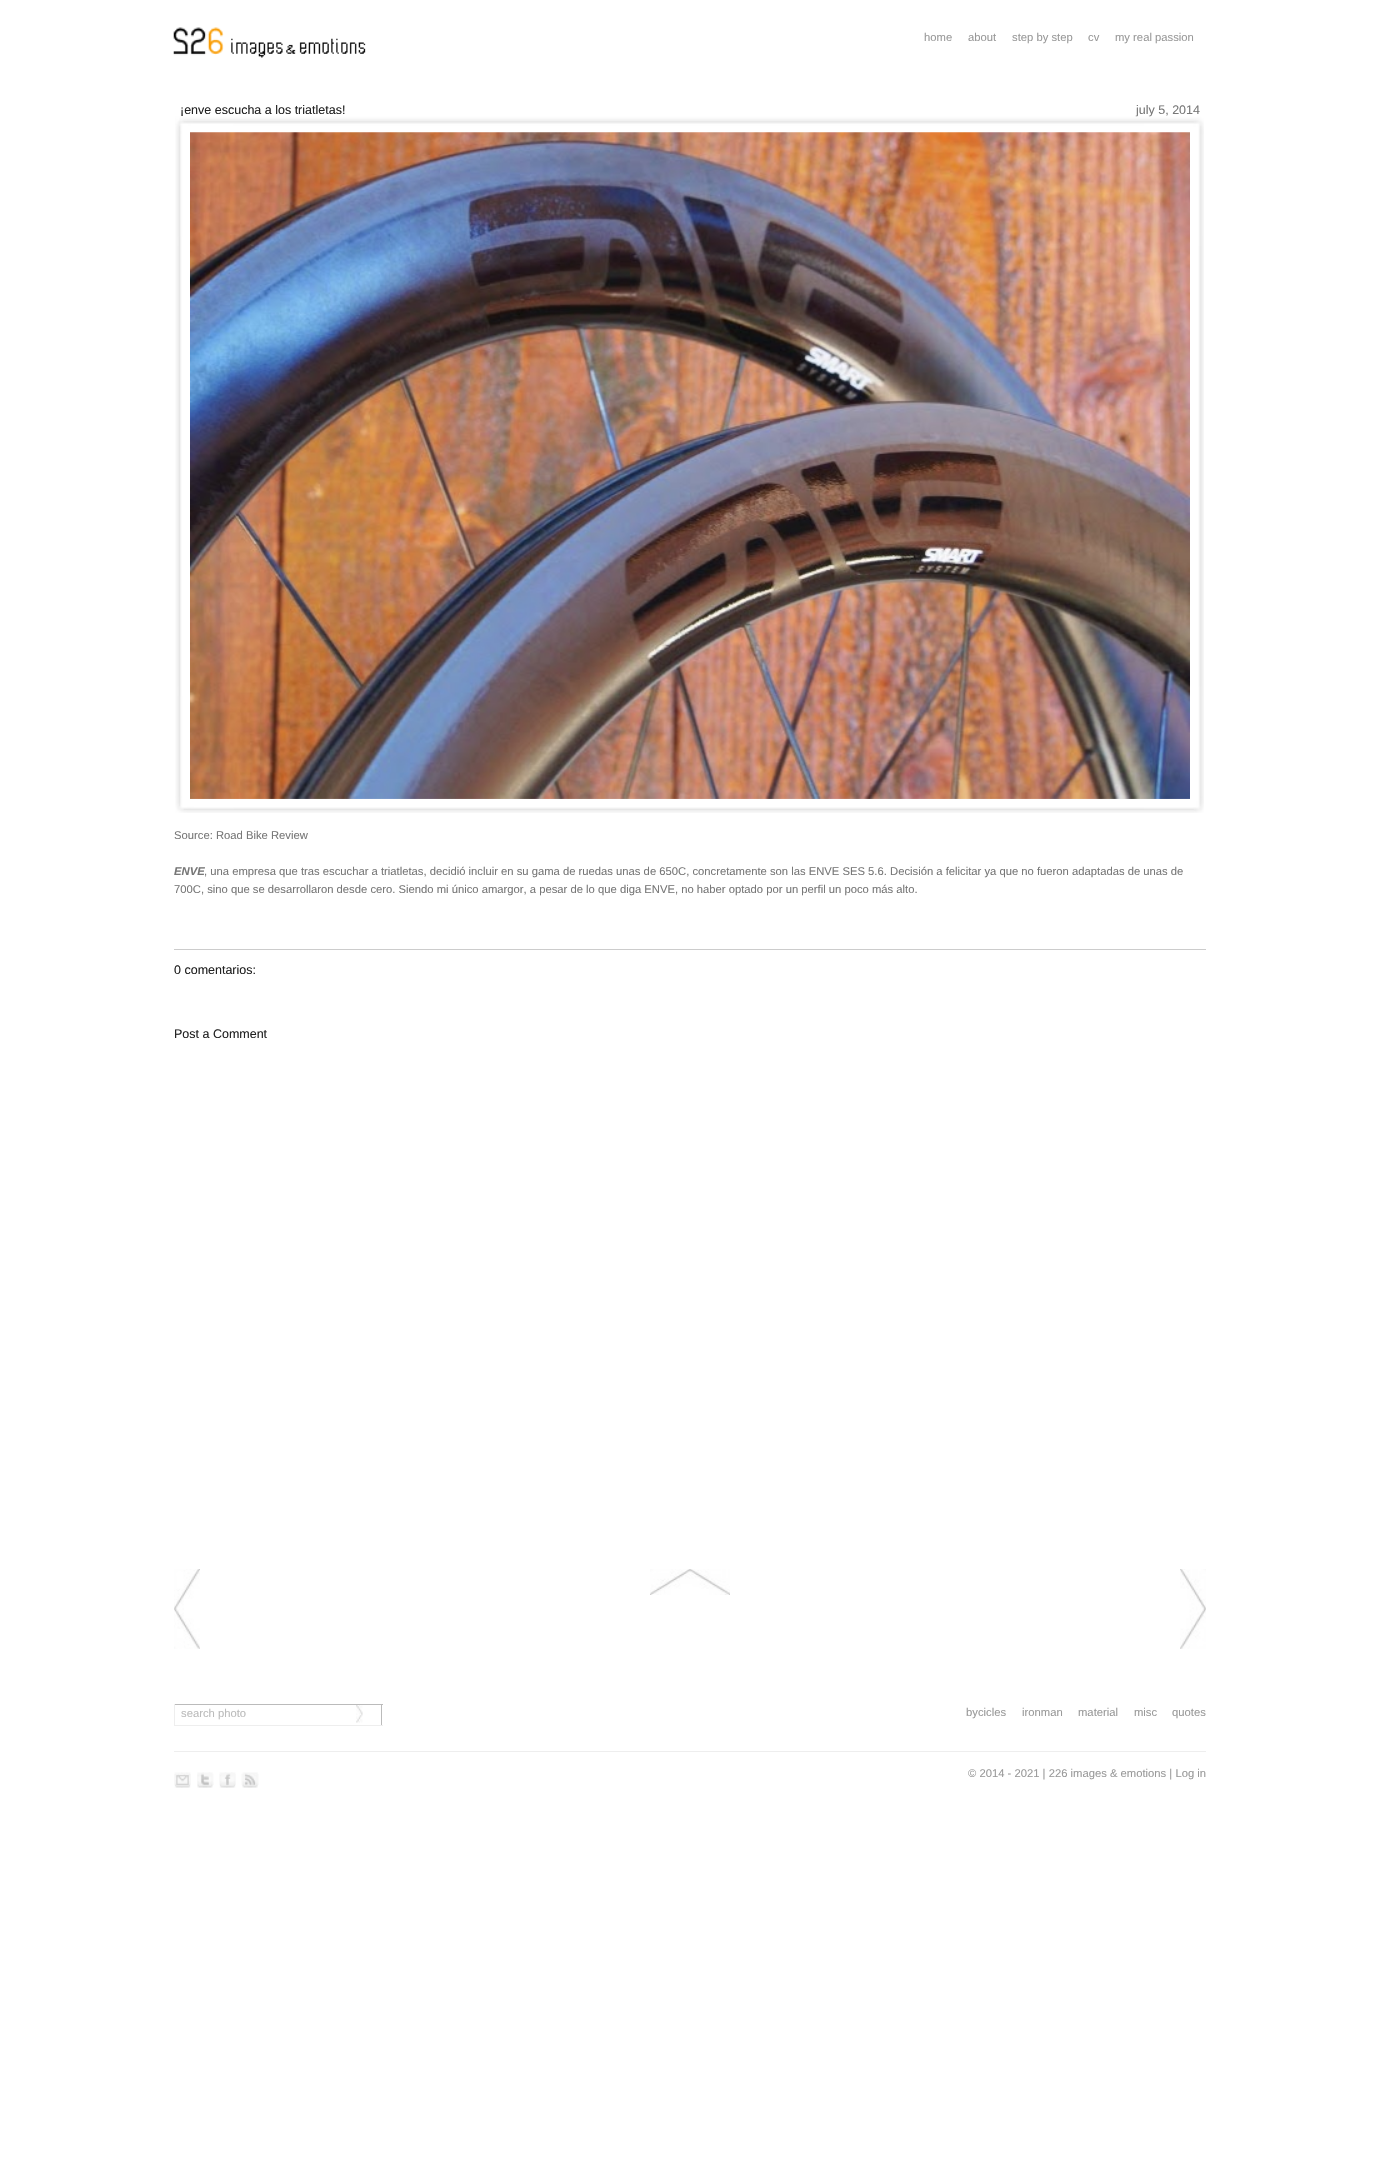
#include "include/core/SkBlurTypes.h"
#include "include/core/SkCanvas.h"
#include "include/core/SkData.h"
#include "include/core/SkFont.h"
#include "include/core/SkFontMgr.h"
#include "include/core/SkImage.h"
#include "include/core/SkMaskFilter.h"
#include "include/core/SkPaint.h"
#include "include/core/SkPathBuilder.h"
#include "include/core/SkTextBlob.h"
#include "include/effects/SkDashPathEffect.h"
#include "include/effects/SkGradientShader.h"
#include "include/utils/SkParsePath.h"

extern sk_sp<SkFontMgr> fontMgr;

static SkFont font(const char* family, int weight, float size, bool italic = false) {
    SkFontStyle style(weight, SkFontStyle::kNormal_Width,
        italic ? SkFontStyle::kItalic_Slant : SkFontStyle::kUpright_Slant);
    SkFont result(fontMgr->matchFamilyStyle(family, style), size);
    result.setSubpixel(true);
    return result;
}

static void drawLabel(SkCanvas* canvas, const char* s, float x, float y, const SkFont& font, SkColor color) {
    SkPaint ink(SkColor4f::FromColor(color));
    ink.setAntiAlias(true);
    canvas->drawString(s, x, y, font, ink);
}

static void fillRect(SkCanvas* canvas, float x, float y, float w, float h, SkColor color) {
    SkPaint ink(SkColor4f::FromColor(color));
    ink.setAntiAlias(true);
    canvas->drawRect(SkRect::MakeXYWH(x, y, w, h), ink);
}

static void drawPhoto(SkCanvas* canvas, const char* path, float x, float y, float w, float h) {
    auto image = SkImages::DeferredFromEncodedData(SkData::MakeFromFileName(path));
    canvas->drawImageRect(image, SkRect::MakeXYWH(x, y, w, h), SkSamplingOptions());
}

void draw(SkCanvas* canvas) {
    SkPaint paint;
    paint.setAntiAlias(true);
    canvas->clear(0xFFFFFFFF);
    drawPhoto(canvas, "assets/img1.png", 173, 27, 193, 31);
    SkFont font1 = font("Liberation Sans", 400, 11.25f);
    drawLabel(canvas, "home", 924, 41, font1, 0xFF999999);
    drawLabel(canvas, "about", 968, 41, font1, 0xFF999999);
    drawLabel(canvas, "step by step", 1012, 41, font1, 0xFF999999);
    drawLabel(canvas, "cv", 1088, 41, font1, 0xFF999999);
    drawLabel(canvas, "my real passion", 1115, 41, font1, 0xFF999999);
    SkFont font2 = font("Liberation Sans", 400, 12.5f);
    drawLabel(canvas, "¡enve escucha a los triatletas!", 180, 114, font2, 0xFF222222);
    drawLabel(canvas, "july 5, 2014", 1136, 114, font2, 0xFF777777);
    drawPhoto(canvas, "assets/img2.png", 175, 116, 1029, 697);
    drawPhoto(canvas, "assets/img3.png", 190, 132, 1000, 667);
    drawLabel(canvas, "Source: Road Bike Review", 174, 839, font1, 0xFF777777);
    SkFont font3 = font("Liberation Sans", 700, 11.25f, true);
    drawLabel(canvas, "ENVE", 174, 875, font3, 0xFF777777);
    drawLabel(canvas, ", una empresa que tras escuchar a triatletas, decidió incluir en su gama de ruedas unas de 650C, concretamente son las ENVE SES 5.6. Decisión a felicitar ya que no fueron adaptadas de unas de", 204, 875, font1, 0xFF777777);
    drawLabel(canvas, "700C, sino que se desarrollaron desde cero. Siendo mi único amargor, a pesar de lo que diga ENVE, no haber optado por un perfil un poco más alto.", 174, 893, font1, 0xFF777777);
    fillRect(canvas, 174, 949, 1032, 1, 0xFFCCCCCC);
    drawLabel(canvas, "0 comentarios:", 174, 974, font2, 0xFF222222);
    drawLabel(canvas, "Post a Comment", 174, 1038, font2, 0xFF222222);
    drawPhoto(canvas, "assets/img4.png", 174, 1569, 26, 80);
    drawPhoto(canvas, "assets/img5.png", 650, 1569, 80, 26);
    drawPhoto(canvas, "assets/img6.png", 1180, 1569, 26, 80);
    fillRect(canvas, 174, 1704, 209, 1, 0xFFBBBBBB);
    fillRect(canvas, 381, 1704, 1, 22, 0xFFBBBBBB);
    fillRect(canvas, 174, 1725, 209, 1, 0xFFEEEEEE);
    fillRect(canvas, 174, 1704, 1, 22, 0xFFEEEEEE);
    drawLabel(canvas, "search photo", 181, 1717, font1, 0xFFBBBBBB);
    drawPhoto(canvas, "assets/img7.png", 356, 1705, 7, 18);
    drawLabel(canvas, "bycicles", 966, 1716, font1, 0xFF999999);
    drawLabel(canvas, "ironman", 1022, 1716, font1, 0xFF999999);
    drawLabel(canvas, "material", 1078, 1716, font1, 0xFF999999);
    drawLabel(canvas, "misc", 1134, 1716, font1, 0xFF999999);
    drawLabel(canvas, "quotes", 1172, 1716, font1, 0xFF999999);
    fillRect(canvas, 174, 1751, 1032, 1, 0xFFEEEEEE);
    drawPhoto(canvas, "assets/img8.png", 174, 1772, 17, 16);
    drawPhoto(canvas, "assets/img9.png", 197, 1772, 17, 16);
    drawPhoto(canvas, "assets/img10.png", 219, 1772, 17, 16);
    drawPhoto(canvas, "assets/img11.png", 241, 1772, 18, 16);
    drawLabel(canvas, "© 2014 - 2021 | 226 images & emotions | Log in", 968, 1777, font1, 0xFF999999);
}
